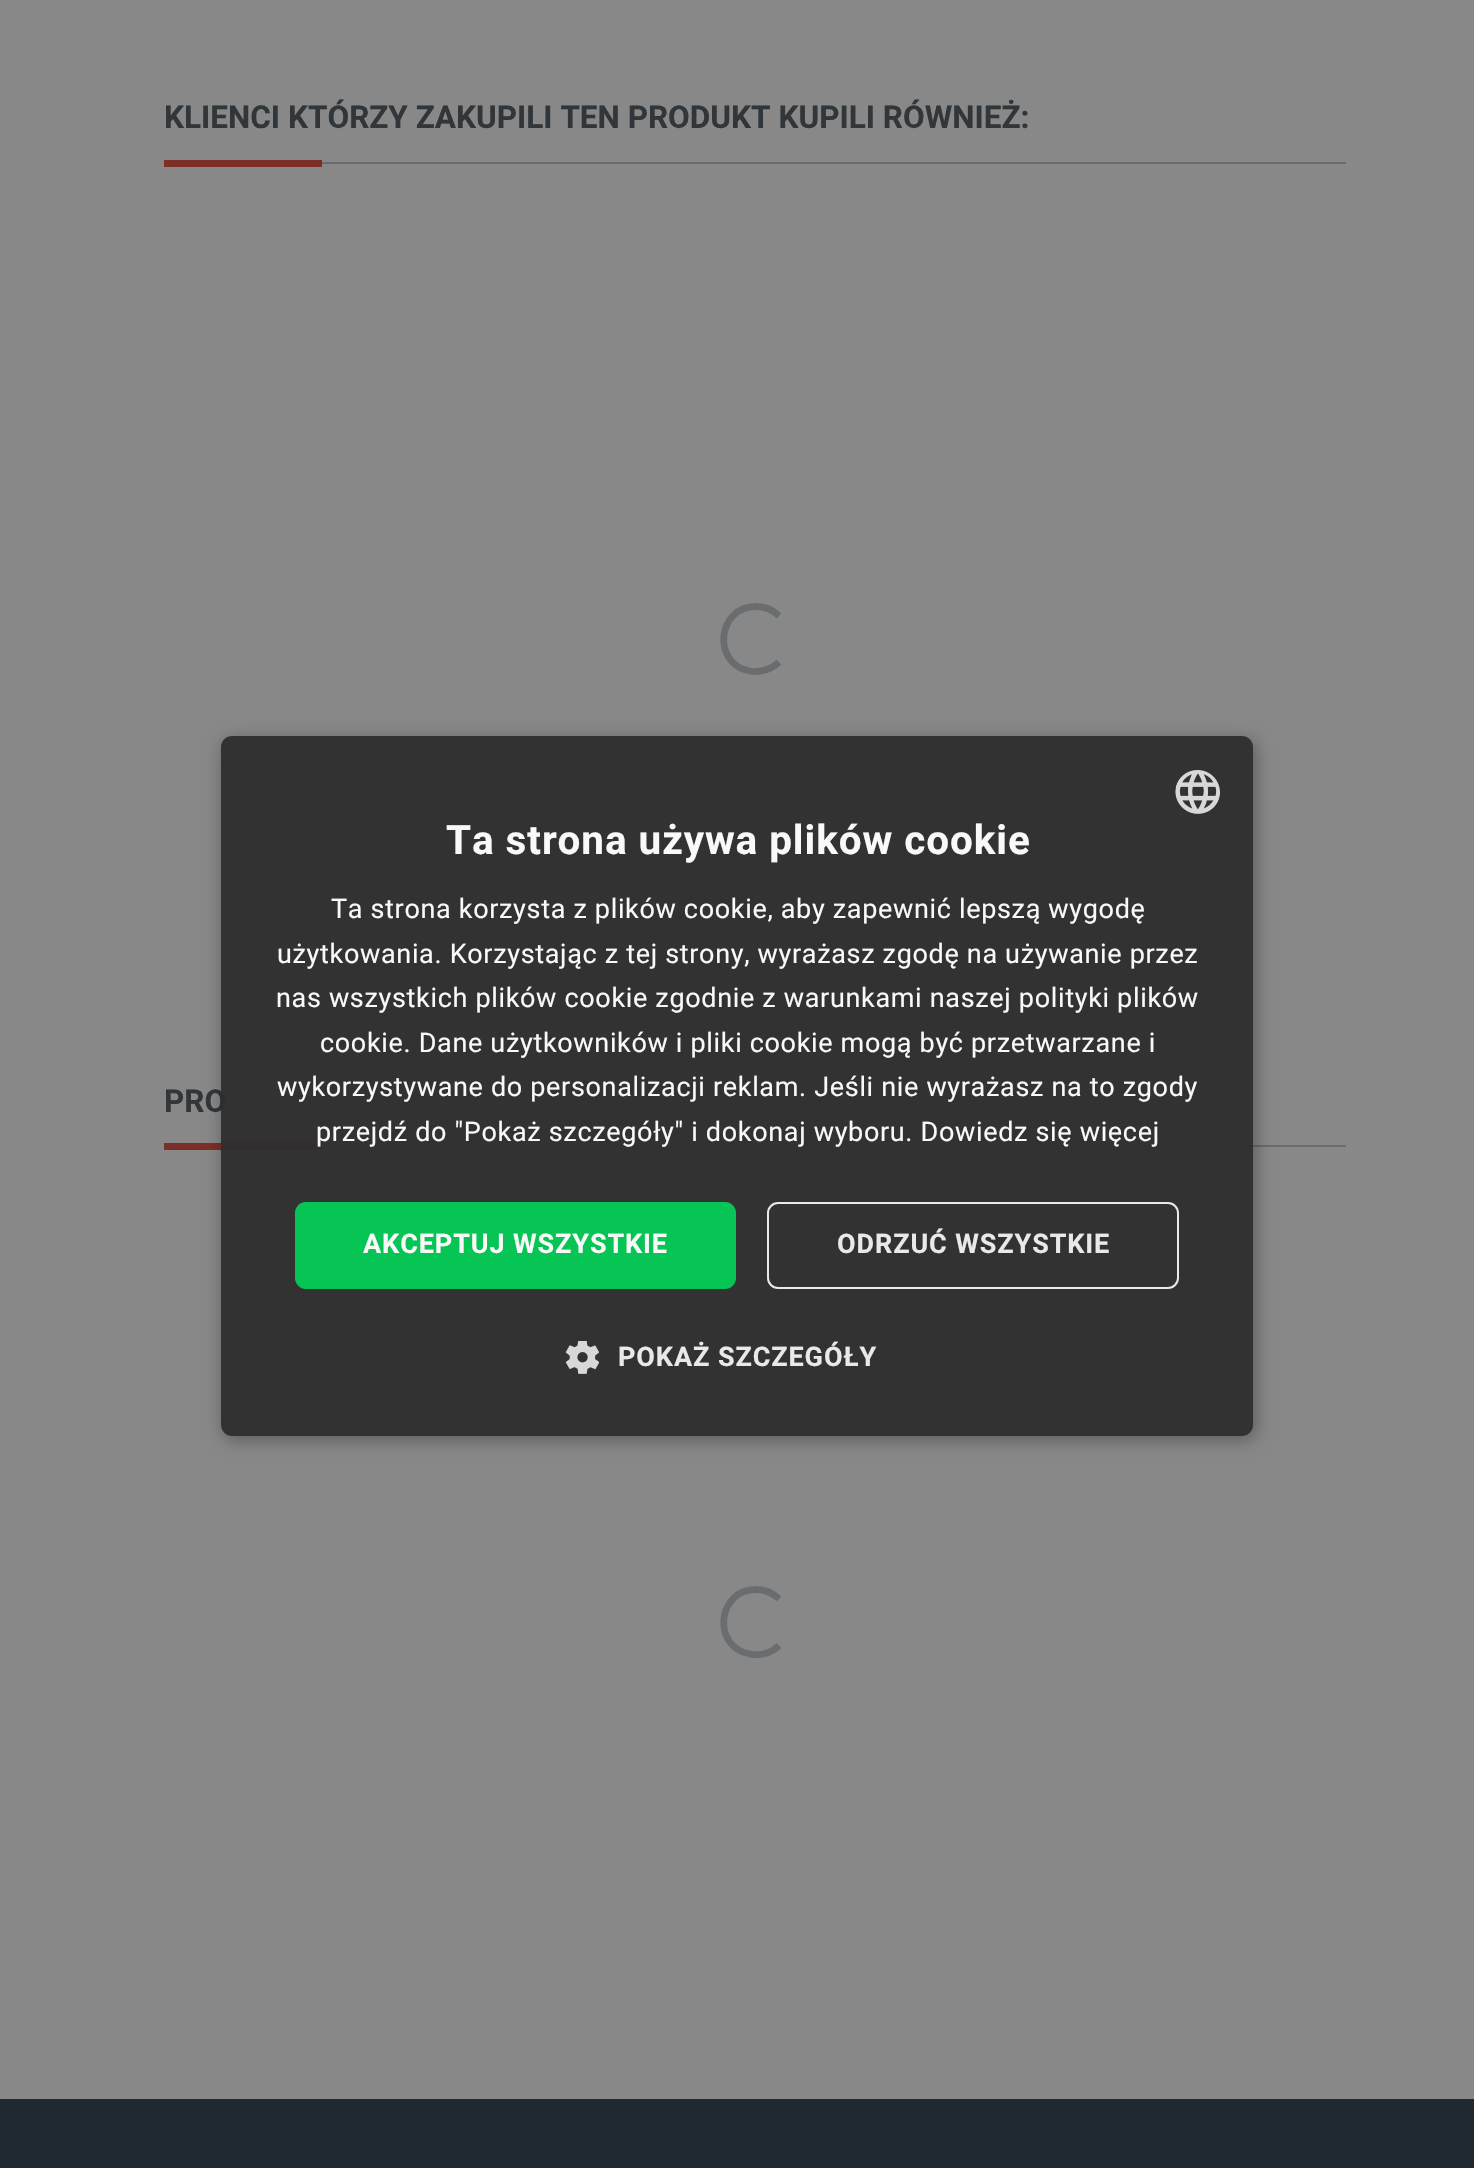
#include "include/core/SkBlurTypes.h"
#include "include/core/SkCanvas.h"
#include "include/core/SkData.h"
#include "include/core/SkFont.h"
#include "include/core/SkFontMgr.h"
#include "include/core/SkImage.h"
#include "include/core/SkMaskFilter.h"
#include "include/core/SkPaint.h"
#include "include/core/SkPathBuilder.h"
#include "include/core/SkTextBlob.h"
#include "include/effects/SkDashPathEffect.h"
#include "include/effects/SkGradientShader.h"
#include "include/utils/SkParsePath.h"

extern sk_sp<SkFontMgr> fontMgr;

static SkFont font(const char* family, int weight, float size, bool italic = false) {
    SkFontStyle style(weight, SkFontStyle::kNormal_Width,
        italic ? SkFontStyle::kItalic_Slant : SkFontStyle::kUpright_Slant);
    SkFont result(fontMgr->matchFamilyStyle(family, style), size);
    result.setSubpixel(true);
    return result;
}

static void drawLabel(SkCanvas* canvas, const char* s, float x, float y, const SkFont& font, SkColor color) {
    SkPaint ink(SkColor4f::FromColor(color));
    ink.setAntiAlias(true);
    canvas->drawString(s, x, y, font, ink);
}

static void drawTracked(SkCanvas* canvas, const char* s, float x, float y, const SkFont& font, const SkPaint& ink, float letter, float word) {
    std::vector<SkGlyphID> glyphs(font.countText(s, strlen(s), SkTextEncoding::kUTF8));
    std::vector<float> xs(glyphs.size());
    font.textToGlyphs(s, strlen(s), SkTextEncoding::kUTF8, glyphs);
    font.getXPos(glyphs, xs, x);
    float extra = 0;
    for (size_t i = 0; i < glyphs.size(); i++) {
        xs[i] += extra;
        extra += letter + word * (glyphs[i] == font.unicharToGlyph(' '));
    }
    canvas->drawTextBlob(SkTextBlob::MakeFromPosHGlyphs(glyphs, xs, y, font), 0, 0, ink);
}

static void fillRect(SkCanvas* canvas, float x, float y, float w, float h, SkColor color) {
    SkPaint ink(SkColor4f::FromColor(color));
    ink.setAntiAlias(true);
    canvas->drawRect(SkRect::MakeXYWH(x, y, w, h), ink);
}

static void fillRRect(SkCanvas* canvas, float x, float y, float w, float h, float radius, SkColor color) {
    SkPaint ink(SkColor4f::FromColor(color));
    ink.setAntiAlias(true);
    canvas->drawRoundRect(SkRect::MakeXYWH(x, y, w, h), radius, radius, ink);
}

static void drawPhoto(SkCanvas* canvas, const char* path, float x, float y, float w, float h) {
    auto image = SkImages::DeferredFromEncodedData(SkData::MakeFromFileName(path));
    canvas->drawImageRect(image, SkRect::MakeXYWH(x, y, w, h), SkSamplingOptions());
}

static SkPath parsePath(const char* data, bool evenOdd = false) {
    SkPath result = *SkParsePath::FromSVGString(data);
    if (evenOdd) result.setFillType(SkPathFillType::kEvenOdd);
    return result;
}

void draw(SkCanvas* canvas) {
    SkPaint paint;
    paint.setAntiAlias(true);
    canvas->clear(0xFF888888);
    fillRect(canvas, 322, 162, 1024, 2, 0xFF6A6D6F);
    SkFont font1 = font("Roboto", 700, 31.5f);
    drawLabel(canvas, "KLIENCI KTÓRZY ZAKUPILI TEN PRODUKT KUPILI RÓWNIEŻ:", 164, 128, font1, 0xFF30363A);
    fillRect(canvas, 164, 160, 158, 7, 0xFF7C2F27);
    paint.setStroke(true);
    paint.setStrokeWidth(6.8f);
    paint.setColor(0xFF6A6D6F);
    canvas->drawPath(parsePath("M779 662C771.5 669.5 760 673 749.5 671C711.5 663.5 717 606.5 756 606.5C764.5 606.5 773 610 779 616"), paint);
    fillRect(canvas, 322, 1145, 1024, 2, 0xFF6A6D6F);
    drawLabel(canvas, "PRO", 164, 1112, font1, 0xFF30363A);
    fillRect(canvas, 164, 1143, 158, 7, 0xFF7C2F27);
    canvas->drawPath(parsePath("M779 1645.5C771.5 1653 760 1656.5 749.5 1654C711.5 1646.5 717 1589.5 756 1589.5C764.5 1589.5 773 1593 779 1599"), paint);
    fillRect(canvas, 0, 2099, 1474, 69, 0xFF202830);
    canvas->save();
    canvas->clipPath(parsePath("M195 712H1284V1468H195ZM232 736H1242C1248 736 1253 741 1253 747V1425C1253 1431 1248 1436 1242 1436H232C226 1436 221 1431 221 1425V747C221 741 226 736 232 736Z", true), true);
    paint.setStroke(false);
    paint.setColor(0x54000000);
    paint.setMaskFilter(SkMaskFilter::MakeBlur(kNormal_SkBlurStyle, 9));
    canvas->drawRoundRect(SkRect::MakeXYWH(223, 740, 1033, 700), 11, 11, paint);
    paint.setMaskFilter(nullptr);
    canvas->restore();
    fillRRect(canvas, 221, 736, 1032, 700, 11, 0xF22D2D2D);
    drawPhoto(canvas, "assets/img1.png", 1175, 770, 45, 44);
    SkFont font2 = font("Roboto", 700, 40.5f);
    paint.setColor(0xFFF9F9F9);
    drawTracked(canvas, "Ta strona używa plików cookie", 446, 854, font2, paint, 0.9f, 0);
    SkFont font3 = font("Roboto", 400, 27);
    drawTracked(canvas, "Ta strona korzysta z plików cookie, aby zapewnić lepszą wygodę", 331, 918, font3, paint, 0.67f, 0);
    drawTracked(canvas, "użytkowania. Korzystając z tej strony, wyrażasz zgodę na używanie przez", 277, 963, font3, paint, 0.67f, 0);
    drawTracked(canvas, "nas wszystkich plików cookie zgodnie z warunkami naszej polityki plików", 276, 1007, font3, paint, 0.67f, 0);
    drawTracked(canvas, "cookie. Dane użytkowników i pliki cookie mogą być przetwarzane i", 320, 1052, font3, paint, 0.67f, 0);
    drawTracked(canvas, "wykorzystywane do personalizacji reklam. Jeśli nie wyrażasz na to zgody", 277, 1096, font3, paint, 0.67f, 0);
    drawTracked(canvas, "przejdź do \"Pokaż szczegóły\" i dokonaj wyboru. Dowiedz się więcej", 316, 1141, font3, paint, 0.67f, 0);
    fillRRect(canvas, 295, 1202, 441, 87, 11, 0xFF07C554);
    SkFont font4 = font("Roboto", 700, 27);
    drawTracked(canvas, "AKCEPTUJ WSZYSTKIE", 363, 1253, font4, paint, 0.9f, 0);
    paint.setStroke(true);
    paint.setStrokeWidth(2);
    paint.setColor(0xFFE9E9E9);
    canvas->drawRoundRect(SkRect::MakeXYWH(768, 1203, 410, 85), 10, 10, paint);
    paint.setStroke(false);
    drawTracked(canvas, "ODRZUĆ WSZYSTKIE", 837, 1253, font4, paint, 0.9f, 0);
    drawPhoto(canvas, "assets/img2.png", 565, 1341, 34, 33);
    drawTracked(canvas, "POKAŻ SZCZEGÓŁY", 618, 1366, font4, paint, 0.9f, 0);
}
